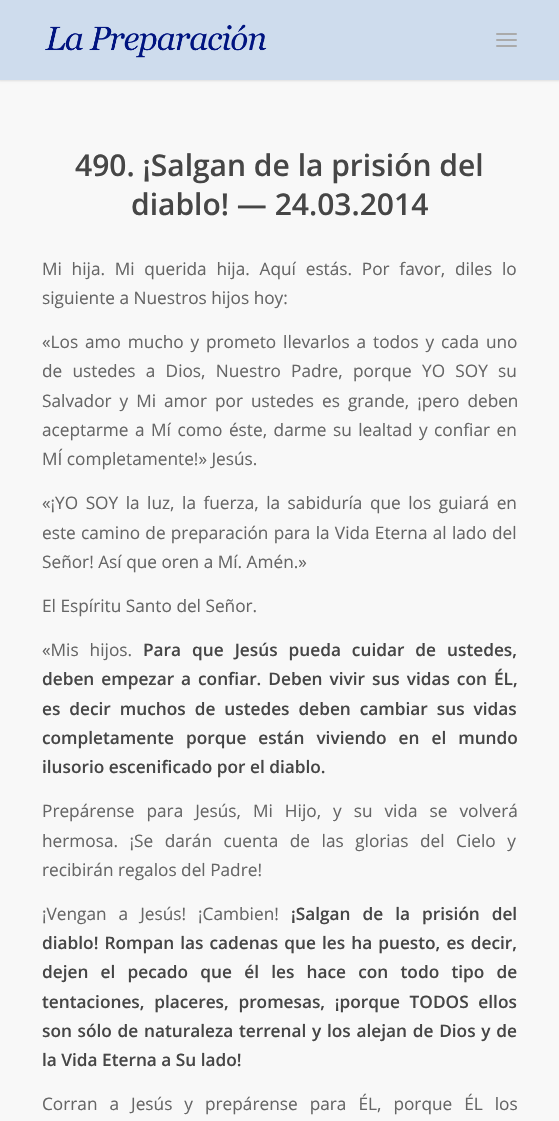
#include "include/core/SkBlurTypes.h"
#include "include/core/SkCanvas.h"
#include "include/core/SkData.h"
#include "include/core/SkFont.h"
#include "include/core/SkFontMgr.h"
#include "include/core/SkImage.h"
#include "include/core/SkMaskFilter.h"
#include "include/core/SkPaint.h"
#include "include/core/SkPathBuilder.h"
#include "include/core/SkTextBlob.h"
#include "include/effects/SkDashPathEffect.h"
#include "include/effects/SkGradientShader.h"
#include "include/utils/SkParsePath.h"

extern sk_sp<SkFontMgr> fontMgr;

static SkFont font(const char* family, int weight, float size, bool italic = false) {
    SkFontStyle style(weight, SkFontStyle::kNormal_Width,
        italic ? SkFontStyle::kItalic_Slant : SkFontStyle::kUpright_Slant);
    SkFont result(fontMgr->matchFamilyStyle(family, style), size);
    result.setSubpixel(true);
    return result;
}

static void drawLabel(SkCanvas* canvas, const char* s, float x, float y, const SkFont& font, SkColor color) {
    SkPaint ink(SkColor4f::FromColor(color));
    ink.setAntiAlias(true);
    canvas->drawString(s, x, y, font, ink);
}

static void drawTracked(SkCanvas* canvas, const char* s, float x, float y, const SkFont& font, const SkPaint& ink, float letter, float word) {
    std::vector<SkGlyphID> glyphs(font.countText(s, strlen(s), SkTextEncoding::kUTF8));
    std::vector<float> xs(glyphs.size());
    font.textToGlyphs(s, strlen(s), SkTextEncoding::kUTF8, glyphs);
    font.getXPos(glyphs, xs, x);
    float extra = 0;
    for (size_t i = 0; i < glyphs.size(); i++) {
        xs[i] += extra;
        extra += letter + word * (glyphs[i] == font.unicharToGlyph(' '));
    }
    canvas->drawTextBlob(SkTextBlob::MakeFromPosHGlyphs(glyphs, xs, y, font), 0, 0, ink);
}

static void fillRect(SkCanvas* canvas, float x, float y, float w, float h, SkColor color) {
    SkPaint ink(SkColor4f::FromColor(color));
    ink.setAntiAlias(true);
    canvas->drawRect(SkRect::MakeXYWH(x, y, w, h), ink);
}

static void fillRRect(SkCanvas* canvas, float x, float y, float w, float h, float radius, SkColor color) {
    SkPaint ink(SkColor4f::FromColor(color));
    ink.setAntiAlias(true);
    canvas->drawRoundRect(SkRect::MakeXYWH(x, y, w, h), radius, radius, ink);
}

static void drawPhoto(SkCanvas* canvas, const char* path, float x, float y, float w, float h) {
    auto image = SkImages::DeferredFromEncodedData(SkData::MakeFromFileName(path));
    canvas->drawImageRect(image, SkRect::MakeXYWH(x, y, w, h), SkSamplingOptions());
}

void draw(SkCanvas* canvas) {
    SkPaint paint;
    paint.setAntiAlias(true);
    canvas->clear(0xFFF8F8F8);
    paint.setColor(0x1A000000);
    paint.setMaskFilter(SkMaskFilter::MakeBlur(kNormal_SkBlurStyle, 1));
    canvas->drawRect(SkRect::MakeXYWH(-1, -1, 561, 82), paint);
    paint.setMaskFilter(nullptr);
    fillRect(canvas, 0, 0, 559, 80, 0xFFCEDCED);
    drawPhoto(canvas, "assets/img1.png", 45, 24, 222, 34);
    fillRRect(canvas, 496, 39, 21, 2, 1, 0xFFAAAAAA);
    fillRRect(canvas, 496, 33, 21, 2, 1, 0xFFAAAAAA);
    fillRRect(canvas, 496, 45, 21, 2, 1, 0xFFAAAAAA);
    SkFont font1 = font("Open Sans", 600, 30);
    drawLabel(canvas, "490. ¡Salgan de la prisión del", 75, 176, font1, 0xFF464646);
    drawLabel(canvas, "diablo! — 24.03.2014", 131, 215, font1, 0xFF464646);
    SkFont font2 = font("Open Sans", 400, 17.25f);
    paint.setColor(0xFF666666);
    drawTracked(canvas, "Mi hija. Mi querida hija. Aquí estás. Por favor, diles lo", 42, 275, font2, paint, 0, 5.25f);
    drawLabel(canvas, "siguiente a Nuestros hijos hoy:", 42, 304, font2, 0xFF666666);
    drawTracked(canvas, "«Los amo mucho y prometo llevarlos a todos y cada uno", 42, 348, font2, paint, 0, 2.4f);
    drawTracked(canvas, "de ustedes a Dios, Nuestro Padre, porque YO SOY su", 42, 377, font2, paint, 0, 5.75f);
    drawTracked(canvas, "Salvador y Mi amor por ustedes es grande, ¡pero deben", 42, 407, font2, paint, 0, 3.5f);
    drawTracked(canvas, "aceptarme a Mí como éste, darme su lealtad y confiar en", 42, 436, font2, paint, 0, 2);
    drawLabel(canvas, "MÍ completamente!» Jesús.", 42, 465, font2, 0xFF666666);
    drawTracked(canvas, "«¡YO SOY la luz, la fuerza, la sabiduría que los guiará en", 42, 509, font2, paint, 0, 3);
    drawTracked(canvas, "este camino de preparación para la Vida Eterna al lado del", 42, 539, font2, paint, 0, 0.75f);
    drawLabel(canvas, "Señor! Así que oren a Mí. Amén.»", 42, 568, font2, 0xFF666666);
    drawLabel(canvas, "El Espíritu Santo del Señor.", 42, 612, font2, 0xFF666666);
    drawTracked(canvas, "«Mis hijos.", 42, 656, font2, paint, 0, 6.5f);
    SkFont font3 = font("Open Sans", 600, 17.25f);
    paint.setColor(0xFF464646);
    drawTracked(canvas, "Para que Jesús pueda cuidar de ustedes,", 143, 656, font3, paint, 0, 6.5f);
    drawTracked(canvas, "deben empezar a confiar. Deben vivir sus vidas con ÉL,", 42, 685, font3, paint, 0, 2.5f);
    drawTracked(canvas, "es decir muchos de ustedes deben cambiar sus vidas", 42, 715, font3, paint, 0, 4.5f);
    drawTracked(canvas, "completamente porque están viviendo en el mundo", 42, 744, font3, paint, 0, 7.5f);
    drawLabel(canvas, "ilusorio escenificado por el diablo.", 42, 773, font3, 0xFF464646);
    paint.setColor(0xFF666666);
    drawTracked(canvas, "Prepárense para Jesús, Mi Hijo, y su vida se volverá", 42, 817, font2, paint, 0, 7.5f);
    drawTracked(canvas, "hermosa. ¡Se darán cuenta de las glorias del Cielo y", 42, 847, font2, paint, 0, 7);
    drawLabel(canvas, "recibirán regalos del Padre!", 42, 876, font2, 0xFF666666);
    drawTracked(canvas, "¡Vengan a Jesús! ¡Cambien!", 42, 920, font2, paint, 0, 7.5f);
    paint.setColor(0xFF464646);
    drawTracked(canvas, "¡Salgan de la prisión del", 291, 920, font3, paint, 0, 7.5f);
    drawTracked(canvas, "diablo! Rompan las cadenas que les ha puesto, es decir,", 42, 949, font3, paint, 0, 1.6f);
    drawTracked(canvas, "dejen el pecado que él les hace con todo tipo de", 42, 978, font3, paint, 0, 7.75f);
    drawTracked(canvas, "tentaciones, placeres, promesas, ¡porque TODOS ellos", 42, 1008, font3, paint, 0, 5.25f);
    drawTracked(canvas, "son sólo de naturaleza terrenal y los alejan de Dios y de", 42, 1037, font3, paint, 0, 1.25f);
    drawLabel(canvas, "la Vida Eterna a Su lado!", 42, 1066, font3, 0xFF464646);
    paint.setColor(0xFF666666);
    drawTracked(canvas, "Corran a Jesús y prepárense para ÉL, porque ÉL los", 42, 1110, font2, paint, 0, 7.5f);
}
